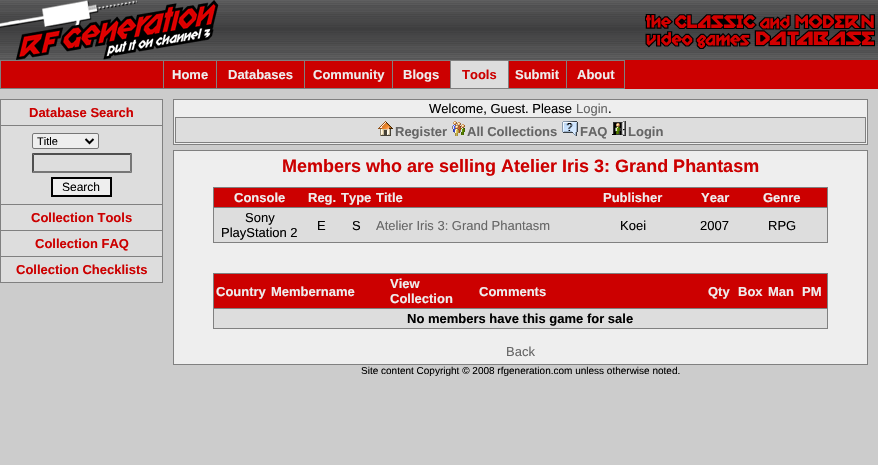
#include "include/core/SkBlurTypes.h"
#include "include/core/SkCanvas.h"
#include "include/core/SkData.h"
#include "include/core/SkFont.h"
#include "include/core/SkFontMgr.h"
#include "include/core/SkImage.h"
#include "include/core/SkMaskFilter.h"
#include "include/core/SkPaint.h"
#include "include/core/SkPathBuilder.h"
#include "include/core/SkTextBlob.h"
#include "include/effects/SkDashPathEffect.h"
#include "include/effects/SkGradientShader.h"
#include "include/utils/SkParsePath.h"

extern sk_sp<SkFontMgr> fontMgr;

static SkFont font(const char* family, int weight, float size, bool italic = false) {
    SkFontStyle style(weight, SkFontStyle::kNormal_Width,
        italic ? SkFontStyle::kItalic_Slant : SkFontStyle::kUpright_Slant);
    SkFont result(fontMgr->matchFamilyStyle(family, style), size);
    result.setSubpixel(true);
    return result;
}

static void drawLabel(SkCanvas* canvas, const char* s, float x, float y, const SkFont& font, SkColor color) {
    SkPaint ink(SkColor4f::FromColor(color));
    ink.setAntiAlias(true);
    canvas->drawString(s, x, y, font, ink);
}

static void fillRect(SkCanvas* canvas, float x, float y, float w, float h, SkColor color) {
    SkPaint ink(SkColor4f::FromColor(color));
    ink.setAntiAlias(true);
    canvas->drawRect(SkRect::MakeXYWH(x, y, w, h), ink);
}

static void drawPhoto(SkCanvas* canvas, const char* path, float x, float y, float w, float h) {
    auto image = SkImages::DeferredFromEncodedData(SkData::MakeFromFileName(path));
    canvas->drawImageRect(image, SkRect::MakeXYWH(x, y, w, h), SkSamplingOptions());
}

static SkPath parsePath(const char* data, bool evenOdd = false) {
    SkPath result = *SkParsePath::FromSVGString(data);
    if (evenOdd) result.setFillType(SkPathFillType::kEvenOdd);
    return result;
}

void draw(SkCanvas* canvas) {
    SkPaint paint;
    paint.setAntiAlias(true);
    canvas->clear(0xFFCCCCCC);
    drawPhoto(canvas, "assets/img1.png", 219, 0, 659, 60);
    drawPhoto(canvas, "assets/img2.png", 0, 0, 219, 60);
    drawPhoto(canvas, "assets/img3.png", 645, 14, 230, 35);
    fillRect(canvas, 625, 60, 253, 29, 0xFFCC0000);
    fillRect(canvas, 0, 60, 625, 29, 0xFF808080);
    fillRect(canvas, 1, 61, 162, 27, 0xFFCC0000);
    fillRect(canvas, 164, 61, 52, 27, 0xFFCC0000);
    SkFont font1 = font("Liberation Sans", 700, 13);
    drawLabel(canvas, "Home", 172, 79, font1, 0xFFEEEEEE);
    fillRect(canvas, 217, 61, 87, 27, 0xFFCC0000);
    drawLabel(canvas, "Databases", 228, 79, font1, 0xFFEEEEEE);
    fillRect(canvas, 305, 61, 87, 27, 0xFFCC0000);
    drawLabel(canvas, "Community", 313, 79, font1, 0xFFEEEEEE);
    fillRect(canvas, 393, 61, 57, 27, 0xFFCC0000);
    drawLabel(canvas, "Blogs", 403, 79, font1, 0xFFEEEEEE);
    fillRect(canvas, 451, 61, 57, 27, 0xFFDDDDDD);
    drawLabel(canvas, "Tools", 462, 79, font1, 0xFFCC0000);
    fillRect(canvas, 509, 61, 57, 27, 0xFFCC0000);
    drawLabel(canvas, "Submit", 515, 79, font1, 0xFFEEEEEE);
    fillRect(canvas, 567, 61, 57, 27, 0xFFCC0000);
    drawLabel(canvas, "About", 577, 79, font1, 0xFFEEEEEE);
    fillRect(canvas, 0, 99, 163, 184, 0xFF808080);
    fillRect(canvas, 1, 100, 161, 25, 0xFFDDDDDD);
    drawLabel(canvas, "Database Search", 29, 117, font1, 0xFFCC0000);
    fillRect(canvas, 1, 126, 161, 78, 0xFFDDDDDD);
    paint.setColor(0xFFEEEEEE);
    canvas->drawRoundRect(SkRect::MakeXYWH(32.5f, 133.5f, 66, 15), 1.5f, 1.5f, paint);
    paint.setStroke(true);
    paint.setStrokeWidth(1);
    paint.setColor(0xFF767676);
    canvas->drawRoundRect(SkRect::MakeXYWH(32.5f, 133.5f, 66, 15), 1.5f, 1.5f, paint);
    paint.setStrokeWidth(2);
    paint.setColor(0xFF000000);
    canvas->drawPath(parsePath("M85.5 139L89.5 143L93.5 139"), paint);
    SkFont font2 = font("Liberation Sans", 400, 11);
    drawLabel(canvas, "Title", 37, 145, font2, 0xFF000000);
    paint.setStroke(false);
    paint.setColor(0xFF4F4F4F);
    canvas->drawPath(parsePath("M32 153H132L130 155H34Z"), paint);
    paint.setColor(0xFF767676);
    canvas->drawPath(parsePath("M132 153V173L130 171V155Z"), paint);
    canvas->drawPath(parsePath("M132 173H32L34 171H130Z"), paint);
    paint.setColor(0xFF4F4F4F);
    canvas->drawPath(parsePath("M32 173V153L34 155V171Z"), paint);
    paint.setColor(0xFFEEEEEE);
    canvas->drawRect(SkRect::MakeXYWH(52, 178, 59, 18), paint);
    paint.setStroke(true);
    paint.setColor(0xFF000000);
    canvas->drawRect(SkRect::MakeXYWH(52, 178, 59, 18), paint);
    SkFont font3 = font("Liberation Sans", 400, 12);
    drawLabel(canvas, "Search", 62, 191, font3, 0xFF000000);
    fillRect(canvas, 1, 205, 161, 25, 0xFFDDDDDD);
    drawLabel(canvas, "Collection Tools", 31, 222, font1, 0xFFCC0000);
    fillRect(canvas, 1, 231, 161, 25, 0xFFDDDDDD);
    drawLabel(canvas, "Collection FAQ", 35, 248, font1, 0xFFCC0000);
    fillRect(canvas, 1, 257, 161, 25, 0xFFDDDDDD);
    drawLabel(canvas, "Collection Checklists", 16, 274, font1, 0xFFCC0000);
    fillRect(canvas, 173, 99, 695, 46, 0xFF808080);
    fillRect(canvas, 174, 100, 693, 44, 0xFFEEEEEE);
    SkFont font4 = font("Liberation Sans", 400, 13);
    drawLabel(canvas, "Welcome, Guest. Please", 429, 113, font4, 0xFF000000);
    drawLabel(canvas, "Login", 576, 113, font4, 0xFF666666);
    drawLabel(canvas, ".", 608, 113, font4, 0xFF000000);
    fillRect(canvas, 175, 117, 691, 26, 0xFF808080);
    fillRect(canvas, 176, 118, 689, 24, 0xFFDDDDDD);
    drawPhoto(canvas, "assets/img4.png", 378, 121, 15, 15);
    drawLabel(canvas, "Register", 395, 136, font1, 0xFF666666);
    drawPhoto(canvas, "assets/img5.png", 452, 121, 13, 15);
    drawLabel(canvas, "All Collections", 467, 136, font1, 0xFF666666);
    drawPhoto(canvas, "assets/img6.png", 562, 121, 16, 15);
    drawLabel(canvas, "FAQ", 580, 136, font1, 0xFF666666);
    drawPhoto(canvas, "assets/img7.png", 612, 121, 14, 15);
    drawLabel(canvas, "Login", 628, 136, font1, 0xFF666666);
    fillRect(canvas, 173, 150, 695, 215, 0xFF808080);
    fillRect(canvas, 174, 151, 693, 213, 0xFFEEEEEE);
    SkFont font5 = font("Liberation Sans", 700, 18);
    drawLabel(canvas, "Members who are selling Atelier Iris 3: Grand Phantasm", 282, 172, font5, 0xFFCC0000);
    fillRect(canvas, 213, 187, 615, 56, 0xFF808080);
    fillRect(canvas, 214, 188, 613, 19, 0xFFCC0000);
    drawLabel(canvas, "Console", 234, 202, font1, 0xFFEEEEEE);
    drawLabel(canvas, "Reg.", 308, 202, font1, 0xFFEEEEEE);
    drawLabel(canvas, "Type", 341, 202, font1, 0xFFEEEEEE);
    drawLabel(canvas, "Title", 376, 202, font1, 0xFFEEEEEE);
    drawLabel(canvas, "Publisher", 603, 202, font1, 0xFFEEEEEE);
    drawLabel(canvas, "Year", 701, 202, font1, 0xFFEEEEEE);
    drawLabel(canvas, "Genre", 763, 202, font1, 0xFFEEEEEE);
    fillRect(canvas, 214, 208, 613, 34, 0xFFDDDDDD);
    drawLabel(canvas, "Sony", 245, 222, font4, 0xFF000000);
    drawLabel(canvas, "PlayStation 2", 221, 237, font4, 0xFF000000);
    drawLabel(canvas, "E", 317, 230, font4, 0xFF000000);
    drawLabel(canvas, "S", 352, 230, font4, 0xFF000000);
    drawLabel(canvas, "Atelier Iris 3: Grand Phantasm", 376, 230, font4, 0xFF666666);
    drawLabel(canvas, "Koei", 620, 230, font4, 0xFF000000);
    drawLabel(canvas, "2007", 700, 230, font4, 0xFF000000);
    drawLabel(canvas, "RPG", 768, 230, font4, 0xFF000000);
    fillRect(canvas, 213, 273, 615, 56, 0xFF808080);
    fillRect(canvas, 214, 274, 613, 34, 0xFFCC0000);
    drawLabel(canvas, "Country", 216, 296, font1, 0xFFEEEEEE);
    drawLabel(canvas, "Membername", 271, 296, font1, 0xFFEEEEEE);
    drawLabel(canvas, "View", 390, 288, font1, 0xFFEEEEEE);
    drawLabel(canvas, "Collection", 390, 303, font1, 0xFFEEEEEE);
    drawLabel(canvas, "Comments", 479, 296, font1, 0xFFEEEEEE);
    drawLabel(canvas, "Qty", 708, 296, font1, 0xFFEEEEEE);
    drawLabel(canvas, "Box", 738, 296, font1, 0xFFEEEEEE);
    drawLabel(canvas, "Man", 768, 296, font1, 0xFFEEEEEE);
    drawLabel(canvas, "PM", 802, 296, font1, 0xFFEEEEEE);
    fillRect(canvas, 214, 309, 613, 19, 0xFFDDDDDD);
    drawLabel(canvas, "No members have this game for sale", 407, 323, font1, 0xFF000000);
    drawLabel(canvas, "Back", 506, 356, font4, 0xFF666666);
    SkFont font6 = font("Liberation Sans", 400, 10);
    drawLabel(canvas, "Site content Copyright © 2008 rfgeneration.com unless otherwise noted.", 361, 374, font6, 0xFF000000);
}
